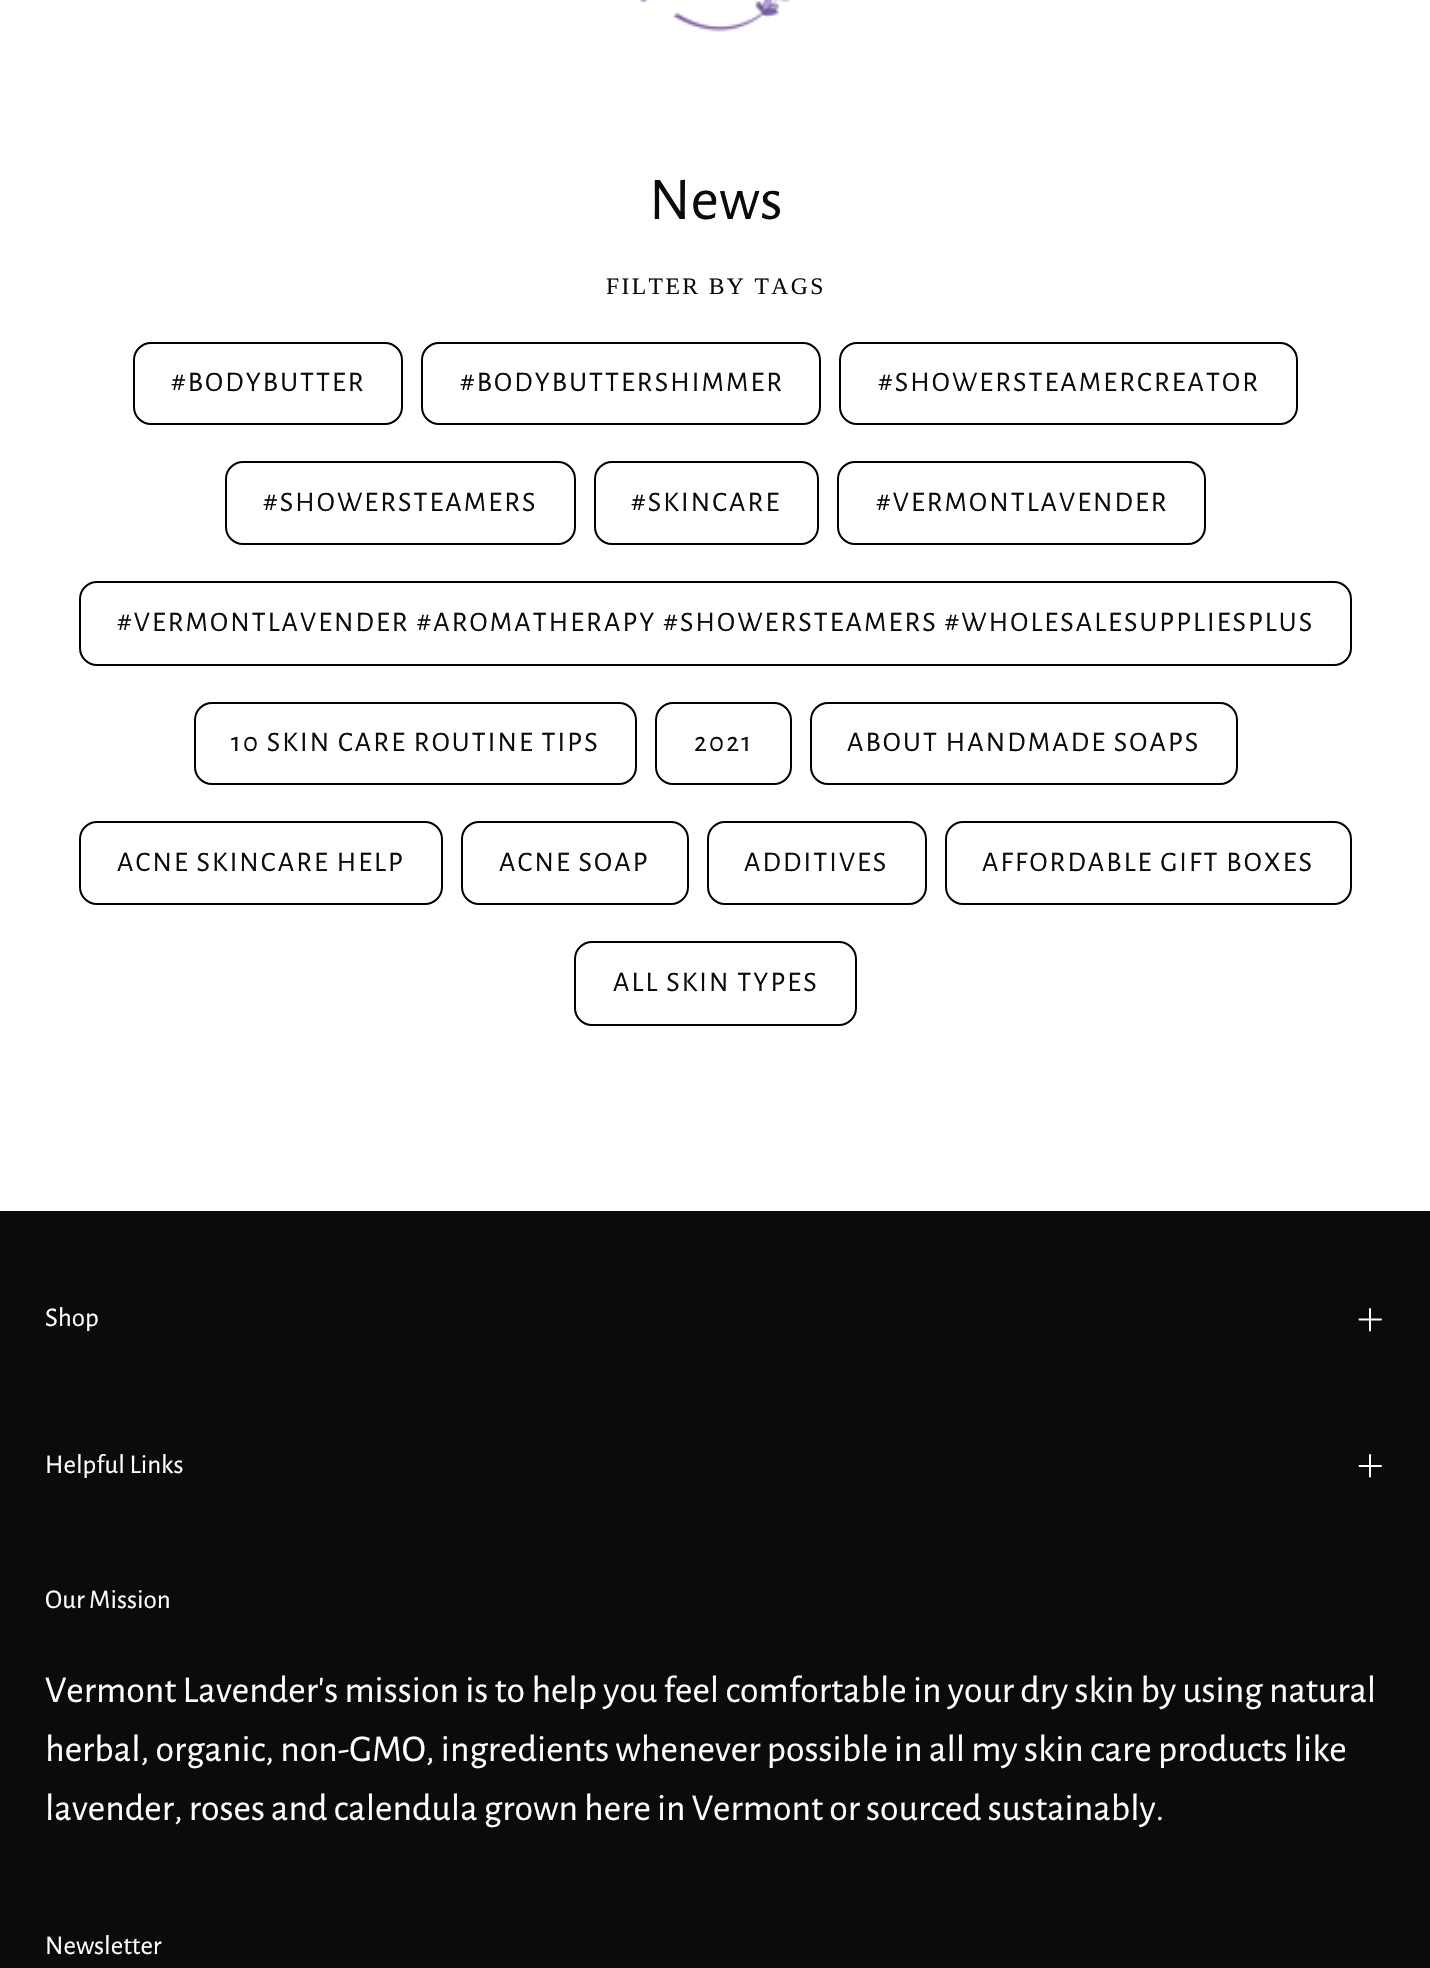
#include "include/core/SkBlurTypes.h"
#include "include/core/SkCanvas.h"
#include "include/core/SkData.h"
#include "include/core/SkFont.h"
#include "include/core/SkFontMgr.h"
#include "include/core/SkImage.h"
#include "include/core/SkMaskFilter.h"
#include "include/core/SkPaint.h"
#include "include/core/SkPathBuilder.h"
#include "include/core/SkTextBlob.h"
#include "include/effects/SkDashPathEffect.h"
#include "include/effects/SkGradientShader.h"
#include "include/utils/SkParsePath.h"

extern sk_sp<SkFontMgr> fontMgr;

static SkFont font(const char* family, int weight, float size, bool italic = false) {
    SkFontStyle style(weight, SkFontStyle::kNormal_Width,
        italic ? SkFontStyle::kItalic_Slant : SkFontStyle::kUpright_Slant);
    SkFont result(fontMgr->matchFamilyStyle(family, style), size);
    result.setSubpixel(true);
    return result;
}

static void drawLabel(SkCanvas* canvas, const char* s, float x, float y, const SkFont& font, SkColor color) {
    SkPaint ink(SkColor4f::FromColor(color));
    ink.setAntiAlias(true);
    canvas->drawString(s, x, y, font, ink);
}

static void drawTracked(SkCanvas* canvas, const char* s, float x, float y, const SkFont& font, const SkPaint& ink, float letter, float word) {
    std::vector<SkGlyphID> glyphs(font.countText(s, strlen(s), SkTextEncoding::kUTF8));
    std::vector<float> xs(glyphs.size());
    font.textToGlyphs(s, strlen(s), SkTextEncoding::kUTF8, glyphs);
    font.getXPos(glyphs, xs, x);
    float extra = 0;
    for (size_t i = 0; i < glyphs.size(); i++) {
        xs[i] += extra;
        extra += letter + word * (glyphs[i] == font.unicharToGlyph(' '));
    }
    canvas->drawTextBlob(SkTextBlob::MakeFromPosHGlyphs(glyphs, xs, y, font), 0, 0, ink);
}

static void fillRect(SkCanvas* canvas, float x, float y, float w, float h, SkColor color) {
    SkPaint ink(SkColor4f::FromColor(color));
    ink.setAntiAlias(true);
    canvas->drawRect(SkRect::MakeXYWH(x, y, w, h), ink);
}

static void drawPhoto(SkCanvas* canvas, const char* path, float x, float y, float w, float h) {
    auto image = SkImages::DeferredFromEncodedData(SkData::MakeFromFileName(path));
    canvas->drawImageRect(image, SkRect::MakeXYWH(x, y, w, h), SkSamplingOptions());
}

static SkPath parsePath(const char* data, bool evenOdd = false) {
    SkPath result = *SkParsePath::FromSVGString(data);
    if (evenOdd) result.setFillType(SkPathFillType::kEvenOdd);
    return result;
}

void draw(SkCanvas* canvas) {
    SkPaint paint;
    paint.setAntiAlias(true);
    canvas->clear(0xFFFFFFFF);
    drawPhoto(canvas, "assets/img1.png", 638, 0, 153, 32);
    SkFont font1 = font("Alegreya Sans", 400, 61);
    drawLabel(canvas, "News", 649, 219, font1, 0xFF0B0B0B);
    SkFont font2 = font("Liberation Serif", 400, 23.6f);
    paint.setColor(0xFF0B0B0B);
    drawTracked(canvas, "FILTER BY TAGS", 606, 294, font2, paint, 2.4f, 0);
    paint.setStroke(true);
    paint.setStrokeWidth(2);
    paint.setColor(0xFF000000);
    canvas->drawRoundRect(SkRect::MakeXYWH(134, 343, 268, 81), 17, 17, paint);
    SkFont font3 = font("Alegreya Sans", 400, 28.35f);
    paint.setStroke(false);
    paint.setColor(0xFF0B0B0B);
    drawTracked(canvas, "#BODYBUTTER", 171, 391, font3, paint, 2.13f, 0);
    paint.setStroke(true);
    paint.setColor(0xFF000000);
    canvas->drawRoundRect(SkRect::MakeXYWH(422, 343, 398, 81), 17, 17, paint);
    paint.setStroke(false);
    paint.setColor(0xFF0B0B0B);
    drawTracked(canvas, "#BODYBUTTERSHIMMER", 460, 391, font3, paint, 2.13f, 0);
    paint.setStroke(true);
    paint.setColor(0xFF000000);
    canvas->drawRoundRect(SkRect::MakeXYWH(840, 343, 457, 81), 17, 17, paint);
    paint.setStroke(false);
    paint.setColor(0xFF0B0B0B);
    drawTracked(canvas, "#SHOWERSTEAMERCREATOR", 878, 391, font3, paint, 2.13f, 0);
    paint.setStroke(true);
    paint.setColor(0xFF000000);
    canvas->drawRoundRect(SkRect::MakeXYWH(226, 462, 349, 82), 17, 17, paint);
    paint.setStroke(false);
    paint.setColor(0xFF0B0B0B);
    drawTracked(canvas, "#SHOWERSTEAMERS", 263, 511, font3, paint, 2.13f, 0);
    paint.setStroke(true);
    paint.setColor(0xFF000000);
    canvas->drawRoundRect(SkRect::MakeXYWH(595, 462, 223, 82), 17, 17, paint);
    paint.setStroke(false);
    paint.setColor(0xFF0B0B0B);
    drawTracked(canvas, "#SKINCARE", 631, 511, font3, paint, 2.13f, 0);
    paint.setStroke(true);
    paint.setColor(0xFF000000);
    canvas->drawRoundRect(SkRect::MakeXYWH(838, 462, 367, 82), 17, 17, paint);
    paint.setStroke(false);
    paint.setColor(0xFF0B0B0B);
    drawTracked(canvas, "#VERMONTLAVENDER", 876, 511, font3, paint, 2.13f, 0);
    paint.setStroke(true);
    paint.setColor(0xFF000000);
    canvas->drawRoundRect(SkRect::MakeXYWH(80, 582, 1271, 83), 17, 17, paint);
    paint.setStroke(false);
    paint.setColor(0xFF0B0B0B);
    drawTracked(canvas, "#VERMONTLAVENDER #AROMATHERAPY #SHOWERSTEAMERS #WHOLESALESUPPLIESPLUS", 117, 631, font3, paint, 2.13f, 0);
    paint.setStroke(true);
    paint.setColor(0xFF000000);
    canvas->drawRoundRect(SkRect::MakeXYWH(195, 703, 441, 81), 17, 17, paint);
    paint.setStroke(false);
    paint.setColor(0xFF0B0B0B);
    drawTracked(canvas, "10 SKIN CARE ROUTINE TIPS", 231, 751, font3, paint, 2.13f, 0);
    paint.setStroke(true);
    paint.setColor(0xFF000000);
    canvas->drawRoundRect(SkRect::MakeXYWH(656, 703, 135, 81), 17, 17, paint);
    paint.setStroke(false);
    paint.setColor(0xFF0B0B0B);
    drawTracked(canvas, "2021", 694, 751, font3, paint, 2.13f, 0);
    paint.setStroke(true);
    paint.setColor(0xFF000000);
    canvas->drawRoundRect(SkRect::MakeXYWH(811, 703, 426, 81), 17, 17, paint);
    paint.setStroke(false);
    paint.setColor(0xFF0B0B0B);
    drawTracked(canvas, "ABOUT HANDMADE SOAPS", 847, 751, font3, paint, 2.13f, 0);
    paint.setStroke(true);
    paint.setColor(0xFF000000);
    canvas->drawRoundRect(SkRect::MakeXYWH(80, 822, 362, 82), 17, 17, paint);
    paint.setStroke(false);
    paint.setColor(0xFF0B0B0B);
    drawTracked(canvas, "ACNE SKINCARE HELP", 117, 871, font3, paint, 2.13f, 0);
    paint.setStroke(true);
    paint.setColor(0xFF000000);
    canvas->drawRoundRect(SkRect::MakeXYWH(462, 822, 226, 82), 17, 17, paint);
    paint.setStroke(false);
    paint.setColor(0xFF0B0B0B);
    drawTracked(canvas, "ACNE SOAP", 499, 871, font3, paint, 2.13f, 0);
    paint.setStroke(true);
    paint.setColor(0xFF000000);
    canvas->drawRoundRect(SkRect::MakeXYWH(708, 822, 218, 82), 17, 17, paint);
    paint.setStroke(false);
    paint.setColor(0xFF0B0B0B);
    drawTracked(canvas, "ADDITIVES", 744, 871, font3, paint, 2.13f, 0);
    paint.setStroke(true);
    paint.setColor(0xFF000000);
    canvas->drawRoundRect(SkRect::MakeXYWH(946, 822, 405, 82), 17, 17, paint);
    paint.setStroke(false);
    paint.setColor(0xFF0B0B0B);
    drawTracked(canvas, "AFFORDABLE GIFT BOXES", 982, 871, font3, paint, 2.13f, 0);
    paint.setStroke(true);
    paint.setColor(0xFF000000);
    canvas->drawRoundRect(SkRect::MakeXYWH(575, 942, 281, 83), 17, 17, paint);
    paint.setStroke(false);
    paint.setColor(0xFF0B0B0B);
    drawTracked(canvas, "ALL SKIN TYPES", 613, 991, font3, paint, 2.13f, 0);
    fillRect(canvas, 0, 1211, 1430, 757, 0xFF0B0B0B);
    SkFont font4 = font("Alegreya Sans", 400, 27);
    drawLabel(canvas, "Shop", 45, 1326, font4, 0xFFFFFFFF);
    paint.setStroke(true);
    paint.setStrokeCap(SkPaint::kRound_Cap);
    paint.setStrokeJoin(SkPaint::kRound_Join);
    paint.setColor(0xFFFFFFFF);
    canvas->drawPath(parsePath("M1359.5 1319.5H1381M1370 1309V1330.5"), paint);
    drawLabel(canvas, "Helpful Links", 45, 1473, font4, 0xFFFFFFFF);
    canvas->drawPath(parsePath("M1359.5 1466H1381M1370 1455V1476.5"), paint);
    drawLabel(canvas, "Our Mission", 45, 1608, font4, 0xFFFFFFFF);
    SkFont font5 = font("Alegreya Sans", 400, 37.8f);
    drawLabel(canvas, "Vermont Lavender's mission is to help you feel comfortable in your dry skin by using natural", 45, 1702, font5, 0xFFFFFFFF);
    drawLabel(canvas, "herbal, organic, non-GMO, ingredients whenever possible in all my skin care products like", 45, 1761, font5, 0xFFFFFFFF);
    paint.setStroke(false);
    drawTracked(canvas, "lavender, roses and calendula grown here in Vermont or sourced sustainably.", 45, 1820, font5, paint, 0, -0.1f);
    drawLabel(canvas, "Newsletter", 45, 1954, font4, 0xFFFFFFFF);
}
